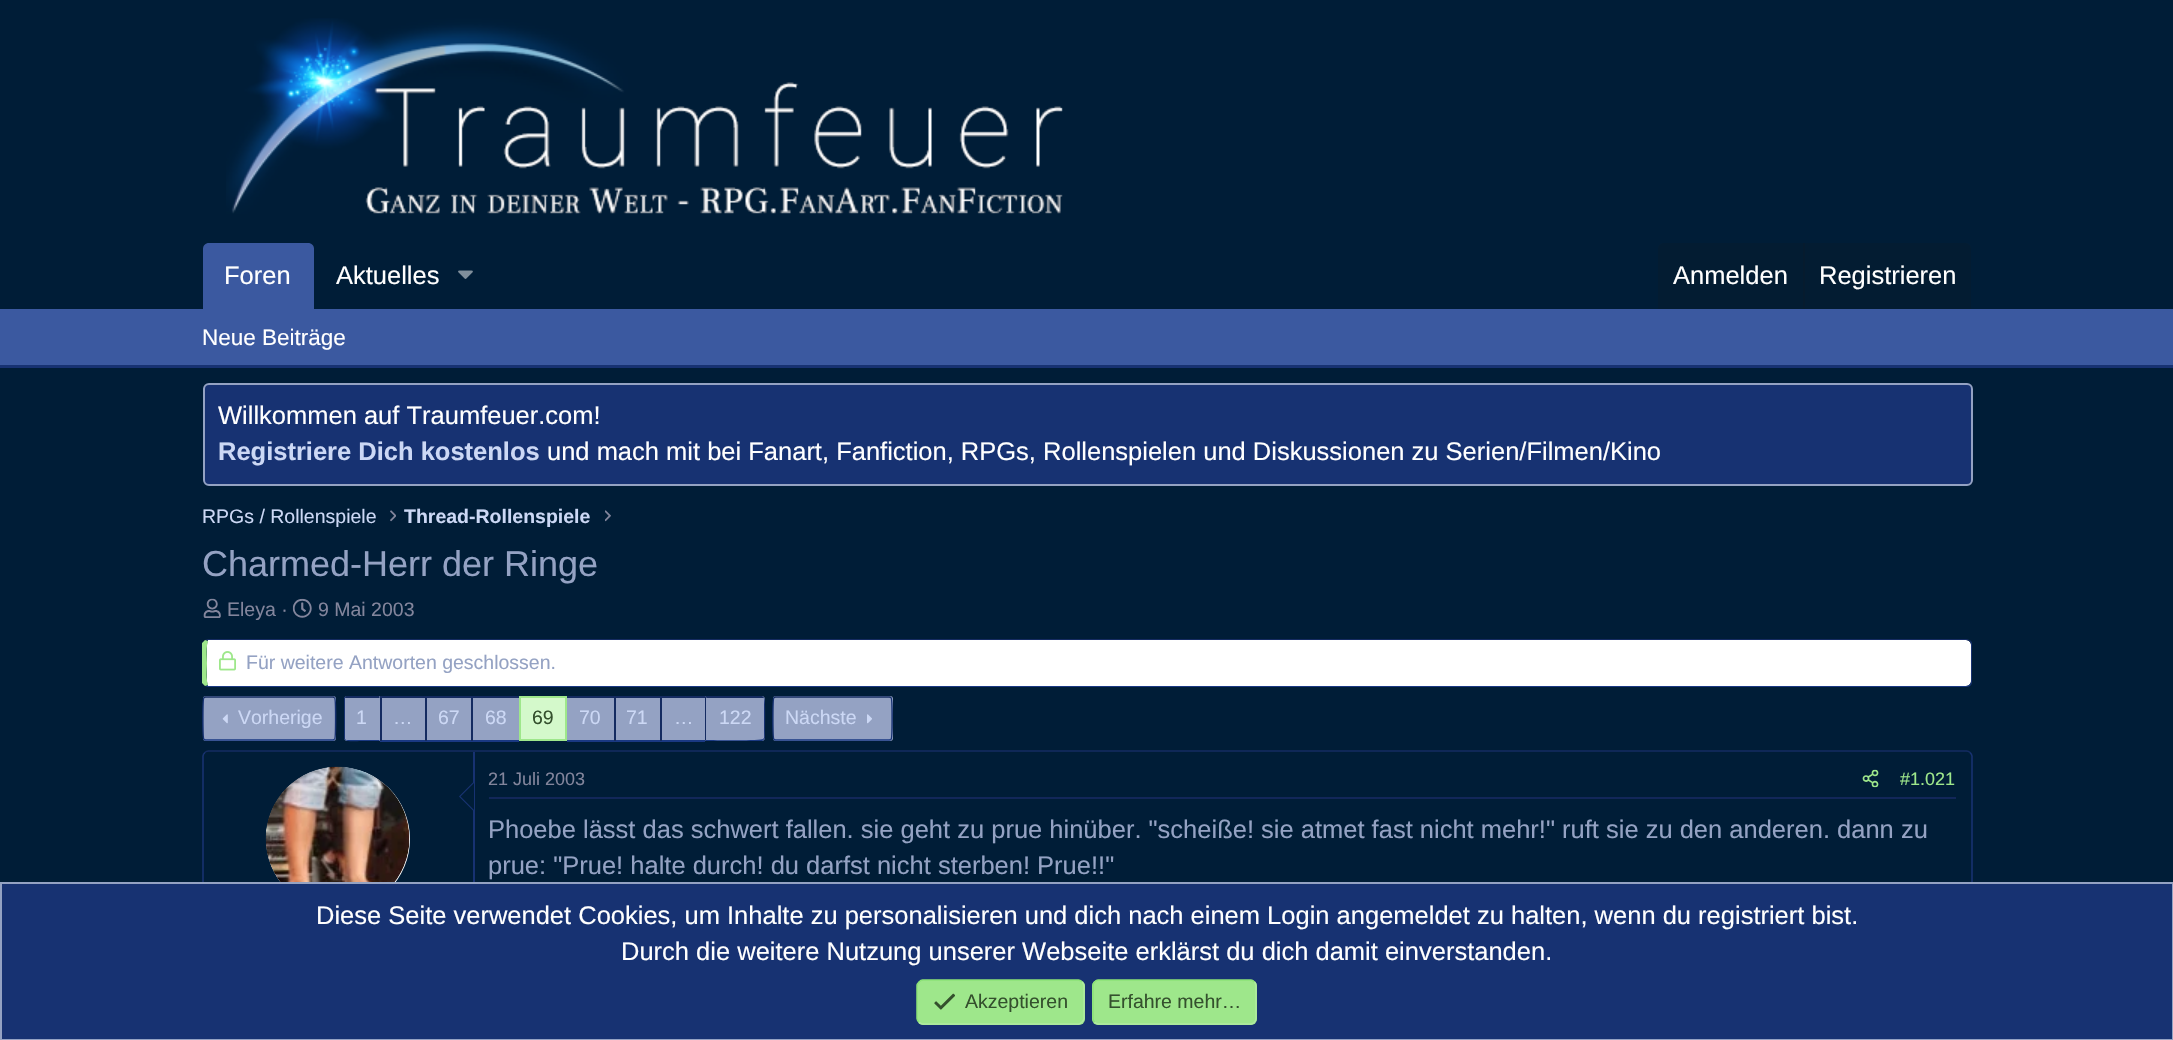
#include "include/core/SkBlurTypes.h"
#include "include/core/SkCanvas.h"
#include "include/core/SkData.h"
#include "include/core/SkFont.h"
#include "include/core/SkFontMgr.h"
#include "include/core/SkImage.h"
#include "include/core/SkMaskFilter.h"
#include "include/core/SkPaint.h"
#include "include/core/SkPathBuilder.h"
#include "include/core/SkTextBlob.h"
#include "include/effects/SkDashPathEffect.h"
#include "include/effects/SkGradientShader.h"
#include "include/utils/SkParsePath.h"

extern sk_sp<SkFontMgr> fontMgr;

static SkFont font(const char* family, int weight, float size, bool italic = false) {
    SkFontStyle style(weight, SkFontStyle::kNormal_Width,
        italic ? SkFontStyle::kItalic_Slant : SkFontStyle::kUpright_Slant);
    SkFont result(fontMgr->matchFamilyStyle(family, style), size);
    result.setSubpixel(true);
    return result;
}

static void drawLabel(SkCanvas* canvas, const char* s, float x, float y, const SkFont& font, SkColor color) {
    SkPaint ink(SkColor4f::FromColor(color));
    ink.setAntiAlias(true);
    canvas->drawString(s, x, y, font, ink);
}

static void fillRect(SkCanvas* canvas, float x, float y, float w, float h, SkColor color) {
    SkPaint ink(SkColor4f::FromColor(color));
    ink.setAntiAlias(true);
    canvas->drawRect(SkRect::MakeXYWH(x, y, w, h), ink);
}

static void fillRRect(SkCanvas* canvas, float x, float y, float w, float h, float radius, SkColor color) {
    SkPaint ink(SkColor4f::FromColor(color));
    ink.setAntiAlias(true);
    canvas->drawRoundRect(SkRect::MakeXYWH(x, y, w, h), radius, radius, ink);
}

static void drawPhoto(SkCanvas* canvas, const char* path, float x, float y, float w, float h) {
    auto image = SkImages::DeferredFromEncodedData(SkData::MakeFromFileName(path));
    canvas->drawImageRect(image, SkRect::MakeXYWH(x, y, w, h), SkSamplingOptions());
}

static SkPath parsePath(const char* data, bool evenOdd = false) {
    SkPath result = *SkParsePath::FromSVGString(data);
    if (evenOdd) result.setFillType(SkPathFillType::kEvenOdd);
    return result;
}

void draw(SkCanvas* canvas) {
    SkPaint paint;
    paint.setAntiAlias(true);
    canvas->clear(0xFF001D37);
    drawPhoto(canvas, "assets/img1.png", 226, 18, 837, 196);
    paint.setColor(0xFF3B59A0);
    canvas->drawPath(parsePath("M209 243H308C311.5 243 314 245.5 314 249V309H203V249C203 245.5 205.5 243 209 243Z"), paint);
    SkFont font1 = font("Liberation Sans", 400, 25.5f);
    drawLabel(canvas, "Foren", 224, 284, font1, 0xFFFFFFFF);
    drawLabel(canvas, "Aktuelles", 336, 284, font1, 0xFFFFFFFF);
    drawPhoto(canvas, "assets/img2.png", 458, 270, 15, 9);
    paint.setColor(0xFF031C32);
    canvas->drawPath(parsePath("M1664 243H1965C1968.5 243 1971 245.5 1971 249V309H1658V249C1658 245.5 1660.5 243 1664 243Z"), paint);
    drawLabel(canvas, "Anmelden", 1673, 284, font1, 0xFFFFFFFF);
    fillRect(canvas, 1803, 243, 2, 66, 0xFF061B2E);
    drawLabel(canvas, "Registrieren", 1819, 284, font1, 0xFFFFFFFF);
    fillRect(canvas, 0, 309, 2173, 56, 0xFF3B59A0);
    fillRect(canvas, 0, 365, 2173, 3, 0xFF173272);
    SkFont font2 = font("Liberation Sans", 400, 22.5f);
    drawLabel(canvas, "Neue Beiträge", 202, 345, font2, 0xFFFFFFFF);
    paint.setColor(0xFF173272);
    canvas->drawRoundRect(SkRect::MakeXYWH(204, 384, 1768, 101), 5, 5, paint);
    paint.setStroke(true);
    paint.setStrokeWidth(2);
    paint.setColor(0xFF94A2C3);
    canvas->drawRoundRect(SkRect::MakeXYWH(204, 384, 1768, 101), 5, 5, paint);
    drawLabel(canvas, "Willkommen auf Traumfeuer.com!", 218, 424, font1, 0xFFFFFFFF);
    SkFont font3 = font("Liberation Sans", 700, 25.5f);
    drawLabel(canvas, "Registriere Dich kostenlos", 218, 460, font3, 0xFFCCD8F5);
    drawLabel(canvas, "und mach mit bei Fanart, Fanfiction, RPGs, Rollenspielen und Diskussionen zu Serien/Filmen/Kino", 547, 460, font1, 0xFFFFFFFF);
    SkFont font4 = font("Liberation Sans", 400, 19.5f);
    drawLabel(canvas, "RPGs / Rollenspiele", 202, 523, font4, 0xFFCCD8F5);
    drawPhoto(canvas, "assets/img3.png", 390, 510, 6, 12);
    SkFont font5 = font("Liberation Sans", 700, 19.5f);
    drawLabel(canvas, "Thread-Rollenspiele", 404, 523, font5, 0xFFCCD8F5);
    drawPhoto(canvas, "assets/img4.png", 605, 510, 6, 12);
    SkFont font6 = font("Liberation Sans", 400, 36);
    drawLabel(canvas, "Charmed-Herr der Ringe", 202, 576, font6, 0xFF94A2C3);
    drawPhoto(canvas, "assets/img5.png", 203, 598, 18, 20);
    drawLabel(canvas, "Eleya ·", 227, 616, font4, 0xFF83859C);
    drawPhoto(canvas, "assets/img6.png", 292, 598, 20, 20);
    drawLabel(canvas, "9 Mai 2003", 318, 616, font4, 0xFF83859C);
    paint.setStroke(false);
    paint.setColor(0xFFFFFFFF);
    canvas->drawPath(parsePath("M208 640H1966C1969 640 1971 643 1971 645V681C1971 683 1969 686 1966 686H208C208 686 207 683 207 681V645C207 643 208 640 208 640Z"), paint);
    paint.setColor(0xFF142B61);
    canvas->drawPath(parsePath("M208 639L205 640L208 641V640H1966C1968 640 1969 641 1970 642L1971 641C1970 640 1968 639 1966 639Z"), paint);
    paint.setColor(0xFF173272);
    canvas->drawPath(parsePath("M1971 641C1972 642 1972 644 1972 645V681C1972 682 1972 684 1971 685L1970 684C1971 683 1971 682 1971 681V645C1971 644 1971 643 1970 642Z"), paint);
    paint.setColor(0xFF1A3983);
    canvas->drawPath(parsePath("M208 687H1966C1968 687 1970 686 1971 685L1970 684C1969 685 1968 686 1966 686H208V685L205 686Z"), paint);
    paint.setColor(0xFF9EE78B);
    canvas->drawPath(parsePath("M202 643L205 640L208 641C206 647 207 656 207 663C207 670 206 679 208 685L205 686L202 683Z"), paint);
    drawPhoto(canvas, "assets/img7.png", 219, 651, 17, 20);
    drawLabel(canvas, "Für weitere Antworten geschlossen.", 246, 669, font4, 0xFF94A2C3);
    fillRRect(canvas, 203, 696, 133, 45, 3, 0xFF94A2C3);
    paint.setStroke(true);
    paint.setStrokeWidth(1.5f);
    paint.setColor(0xFF142B61);
    canvas->drawPath(parsePath("M204 697.5L205.5 697H333L334.5 697.5"), paint);
    paint.setColor(0xFF173272);
    canvas->drawPath(parsePath("M334.5 697.5C336 698.5 336 738.5 334.5 739.5"), paint);
    paint.setColor(0xFF1A3983);
    canvas->drawPath(parsePath("M334.5 739.5L333 740H205.5L204 739.5"), paint);
    paint.setColor(0xFF173272);
    canvas->drawPath(parsePath("M204 739.5C202.5 738.5 202.5 698.5 204 697.5"), paint);
    drawPhoto(canvas, "assets/img8.png", 222, 714, 6, 10);
    drawLabel(canvas, "Vorherige", 238, 724, font4, 0xFFCCD8F5);
    paint.setStroke(false);
    paint.setColor(0xFF94A2C3);
    canvas->drawPath(parsePath("M347 696H380V741H347C345.5 741 344 739.5 344 738V699C344 697.5 345.5 696 347 696Z"), paint);
    paint.setColor(0xFF142B61);
    canvas->drawPath(parsePath("M346 696H379.5V698H345.5L344.5 697Z"), paint);
    paint.setColor(0xFF1A3983);
    canvas->drawPath(parsePath("M379.5 741H360C358.5 741 347 742 345 740L345.5 739L346 740H379.5Z"), paint);
    paint.setColor(0xFF173272);
    canvas->drawPath(parsePath("M345 739V740L344 739V697L346 698H345Z"), paint);
    drawLabel(canvas, "1", 356, 724, font4, 0xFFCCD8F5);
    fillRect(canvas, 382, 698, 43, 42, 0xFF94A2C3);
    fillRect(canvas, 380, 696, 139, 2, 0xFF142B61);
    fillRect(canvas, 380, 740, 139, 2, 0xFF1A3983);
    fillRect(canvas, 380, 696, 2, 45, 0xFF142B61);
    drawLabel(canvas, "…", 393, 724, font4, 0xFFCCD8F5);
    fillRect(canvas, 427, 698, 44, 42, 0xFF94A2C3);
    fillRect(canvas, 425, 696, 2, 45, 0xFF142B61);
    drawLabel(canvas, "67", 438, 724, font4, 0xFFCCD8F5);
    fillRect(canvas, 473, 698, 46, 42, 0xFF94A2C3);
    fillRect(canvas, 471, 696, 2, 45, 0xFF142B61);
    drawLabel(canvas, "68", 485, 724, font4, 0xFFCCD8F5);
    paint.setColor(0xFFD4F9CB);
    canvas->drawRect(SkRect::MakeXYWH(520, 697, 46, 43), paint);
    paint.setStroke(true);
    paint.setStrokeWidth(2);
    paint.setColor(0xFF9EE78B);
    canvas->drawRect(SkRect::MakeXYWH(520, 697, 46, 43), paint);
    drawLabel(canvas, "69", 532, 724, font4, 0xFF34502D);
    fillRect(canvas, 567, 698, 47, 42, 0xFF94A2C3);
    fillRect(canvas, 567, 696, 138, 2, 0xFF142B61);
    fillRect(canvas, 567, 740, 138, 2, 0xFF1A3983);
    drawLabel(canvas, "70", 579, 724, font4, 0xFFCCD8F5);
    fillRect(canvas, 616, 698, 44, 42, 0xFF94A2C3);
    fillRect(canvas, 614, 696, 2, 45, 0xFF142B61);
    drawLabel(canvas, "71", 626, 724, font4, 0xFFCCD8F5);
    fillRect(canvas, 662, 698, 43, 42, 0xFF94A2C3);
    fillRect(canvas, 660, 696, 2, 45, 0xFF142B61);
    drawLabel(canvas, "…", 674, 724, font4, 0xFFCCD8F5);
    paint.setStroke(false);
    paint.setColor(0xFF94A2C3);
    canvas->drawPath(parsePath("M705 696H762C763.5 696 765 697.5 765 699V738C765 739.5 763.5 741 762 741H705Z"), paint);
    paint.setColor(0xFF142B61);
    canvas->drawPath(parsePath("M705 696L707 698H763L764 697L762 696Z"), paint);
    paint.setColor(0xFF173272);
    canvas->drawPath(parsePath("M765 738C765 733 766 699 764 697L763 698C764 698 764 698 764 699V738L763 739L764 740Z"), paint);
    paint.setColor(0xFF1A3983);
    canvas->drawPath(parsePath("M762 741L764 740L763 739C762 741 712 740 706 740L705 741Z"), paint);
    paint.setColor(0xFF142B61);
    canvas->drawPath(parsePath("M705 696V741L706 740V698H707Z"), paint);
    drawLabel(canvas, "122", 719, 724, font4, 0xFFCCD8F5);
    fillRRect(canvas, 773, 696, 120, 45, 3, 0xFF94A2C3);
    paint.setStroke(true);
    paint.setStrokeWidth(1.5f);
    canvas->drawPath(parsePath("M774 697.5L775.5 697H889.5L891 697.5"), paint);
    paint.setColor(0xFF173272);
    canvas->drawPath(parsePath("M891 697.5C892.5 698.5 892.5 738.5 891 739.5"), paint);
    paint.setColor(0xFF1A3983);
    canvas->drawPath(parsePath("M891 739.5L889.5 740H775.5L774 739.5"), paint);
    paint.setColor(0xFF173272);
    canvas->drawPath(parsePath("M774 739.5C772.5 738.5 772.5 698.5 774 697.5"), paint);
    drawLabel(canvas, "Nächste", 785, 724, font4, 0xFFCCD8F5);
    drawPhoto(canvas, "assets/img9.png", 867, 714, 5, 10);
    paint.setColor(0xFF142B61);
    canvas->drawPath(parsePath("M205 752.5C206 751.5 207 751 208.5 751H1966.5C1968 751 1969 751.5 1970 752.5"), paint);
    paint.setColor(0xFF173272);
    canvas->drawPath(parsePath("M1970 752.5C1971 753.5 1972 754.5 1972 756V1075.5C1972 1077 1971 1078 1970 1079"), paint);
    canvas->drawPath(parsePath("M205 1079C204 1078 203 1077 203 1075.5V756C203 754.5 204 753.5 205 752.5"), paint);
    paint.setStroke(false);
    paint.setColor(0xFF001D37);
    canvas->drawPath(parsePath("M209 752H474V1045H209C206 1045 204 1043 204 1040V757C204 754 206 752 209 752Z"), paint);
    fillRect(canvas, 473, 752, 2, 130, 0xFF173272);
    paint.setColor(0xFFFFFFFF);
    canvas->drawCircle(338, 839, 72, paint);
    drawPhoto(canvas, "assets/img10.png", 265, 766, 145, 116);
    paint.setColor(0xFF173272);
    canvas->drawPath(parsePath("M474 781.5V811.5L459 796.5Z"), paint);
    paint.setColor(0xFF001D37);
    canvas->drawPath(parsePath("M474 783V810L460.5 796.5Z"), paint);
    fillRect(canvas, 489, 797, 1467, 2, 0xFF122759);
    SkFont font7 = font("Liberation Sans", 400, 18);
    drawLabel(canvas, "21 Juli 2003", 488, 785, font7, 0xFF83859C);
    drawPhoto(canvas, "assets/img11.png", 1862, 769, 17, 19);
    drawLabel(canvas, "#1.021", 1900, 785, font7, 0xFF9EE78B);
    drawLabel(canvas, "Phoebe lässt das schwert fallen. sie geht zu prue hinüber. \"scheiße! sie atmet fast nicht mehr!\" ruft sie zu den anderen. dann zu", 488, 838, font1, 0xFF94A2C3);
    drawLabel(canvas, "prue: \"Prue! halte durch! du darfst nicht sterben! Prue!!\"", 488, 874, font1, 0xFF94A2C3);
    paint.setColor(0xFF173272);
    canvas->drawRect(SkRect::MakeXYWH(1, 883, 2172, 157), paint);
    paint.setStroke(true);
    paint.setStrokeWidth(2);
    paint.setColor(0xFF94A2C3);
    canvas->drawRect(SkRect::MakeXYWH(1, 883, 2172, 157), paint);
    drawLabel(canvas, "Diese Seite verwendet Cookies, um Inhalte zu personalisieren und dich nach einem Login angemeldet zu halten, wenn du registriert bist.", 316, 924, font1, 0xFFFFFFFF);
    drawLabel(canvas, "Durch die weitere Nutzung unserer Webseite erklärst du dich damit einverstanden.", 621, 960, font1, 0xFFFFFFFF);
    fillRRect(canvas, 917, 980, 168, 45, 6, 0xFF9EE78B);
    paint.setStrokeWidth(1.5f);
    paint.setColor(0xFFB0EBA0);
    canvas->drawPath(parsePath("M1082 982C1083 983 1084 984 1084 985.5V1018.5C1084 1020 1083 1021 1082 1022C1081 1023 1080 1024 1078.5 1024H922.5C921 1024 920 1023 919 1022"), paint);
    paint.setColor(0xFF8CE376);
    canvas->drawPath(parsePath("M919 1022C918 1021 917 1020 917 1018.5V985.5C917 984 918 983 919 982C920 981 921 980 922.5 980H1078.5C1080 980 1081 981 1082 982"), paint);
    drawPhoto(canvas, "assets/img12.png", 934, 993, 21, 17);
    drawLabel(canvas, "Akzeptieren", 965, 1008, font4, 0xFF34502D);
    fillRRect(canvas, 1092, 980, 165, 45, 6, 0xFF9EE78B);
    paint.setColor(0xFFB0EBA0);
    canvas->drawPath(parsePath("M1254.5 982C1255.5 983 1256 984 1256 985.5V1018.5C1256 1020 1255.5 1021 1254.5 1022C1253.5 1023 1252.5 1024 1251 1024H1098C1096.5 1024 1095.5 1023 1094.5 1022"), paint);
    paint.setColor(0xFF8CE376);
    canvas->drawPath(parsePath("M1094.5 1022C1093.5 1021 1093 1020 1093 1018.5V985.5C1093 984 1093.5 983 1094.5 982C1095.5 981 1096.5 980 1098 980H1251C1252.5 980 1253.5 981 1254.5 982"), paint);
    drawLabel(canvas, "Erfahre mehr…", 1108, 1008, font4, 0xFF34502D);
}
